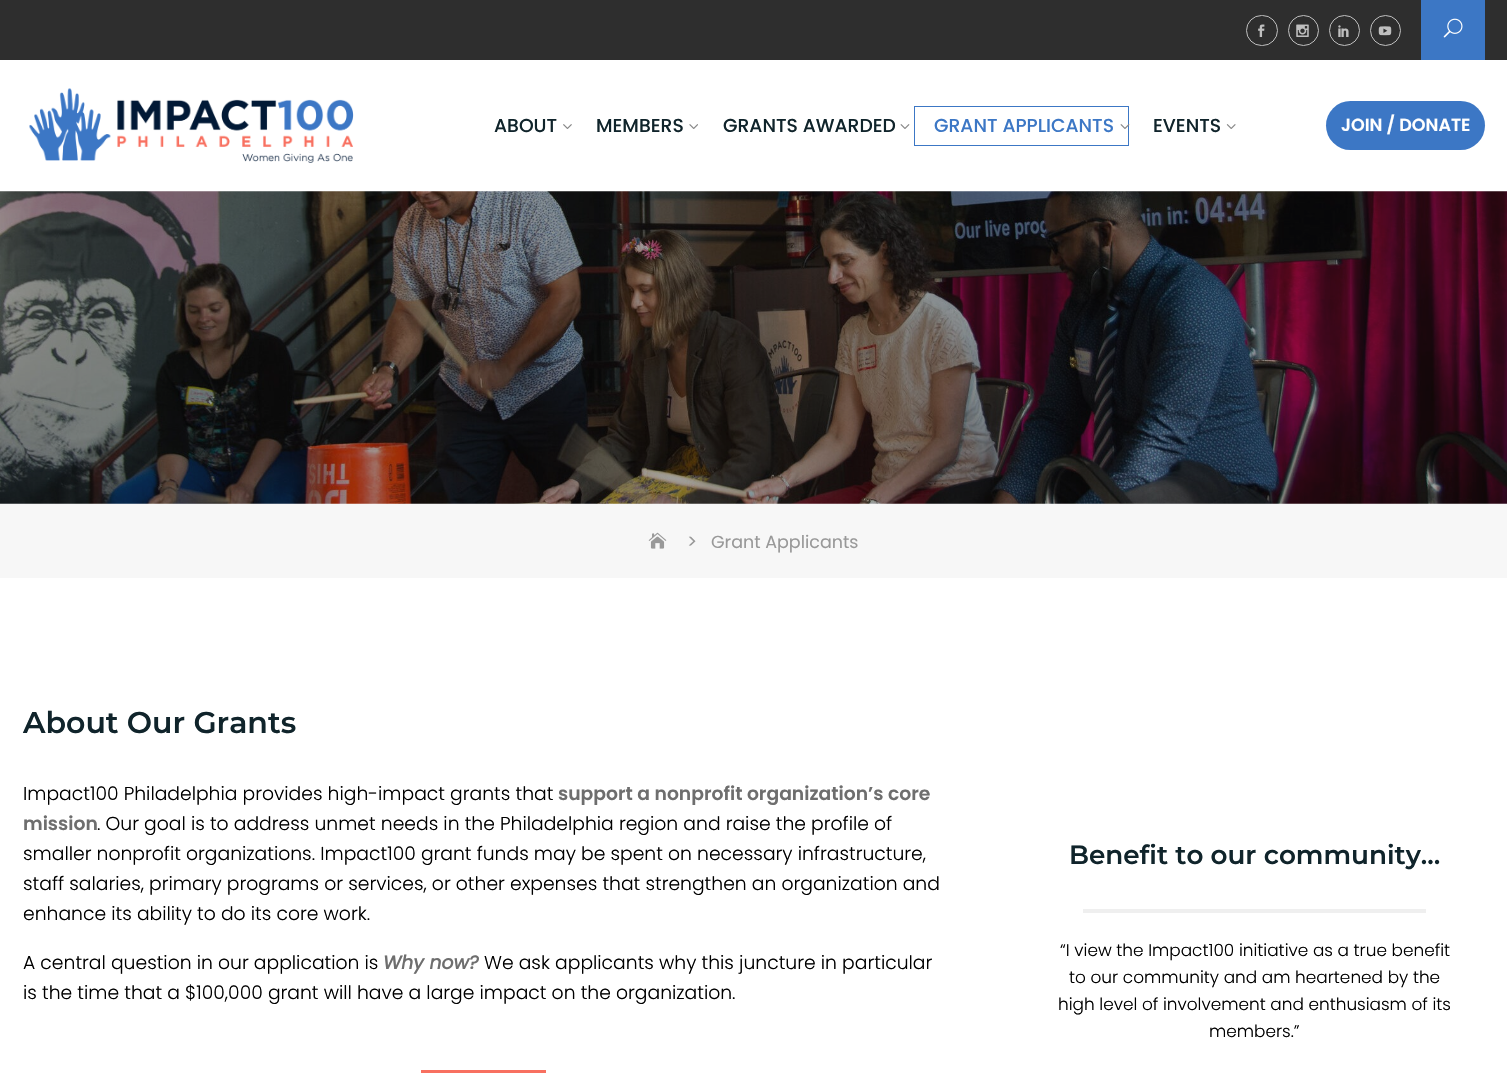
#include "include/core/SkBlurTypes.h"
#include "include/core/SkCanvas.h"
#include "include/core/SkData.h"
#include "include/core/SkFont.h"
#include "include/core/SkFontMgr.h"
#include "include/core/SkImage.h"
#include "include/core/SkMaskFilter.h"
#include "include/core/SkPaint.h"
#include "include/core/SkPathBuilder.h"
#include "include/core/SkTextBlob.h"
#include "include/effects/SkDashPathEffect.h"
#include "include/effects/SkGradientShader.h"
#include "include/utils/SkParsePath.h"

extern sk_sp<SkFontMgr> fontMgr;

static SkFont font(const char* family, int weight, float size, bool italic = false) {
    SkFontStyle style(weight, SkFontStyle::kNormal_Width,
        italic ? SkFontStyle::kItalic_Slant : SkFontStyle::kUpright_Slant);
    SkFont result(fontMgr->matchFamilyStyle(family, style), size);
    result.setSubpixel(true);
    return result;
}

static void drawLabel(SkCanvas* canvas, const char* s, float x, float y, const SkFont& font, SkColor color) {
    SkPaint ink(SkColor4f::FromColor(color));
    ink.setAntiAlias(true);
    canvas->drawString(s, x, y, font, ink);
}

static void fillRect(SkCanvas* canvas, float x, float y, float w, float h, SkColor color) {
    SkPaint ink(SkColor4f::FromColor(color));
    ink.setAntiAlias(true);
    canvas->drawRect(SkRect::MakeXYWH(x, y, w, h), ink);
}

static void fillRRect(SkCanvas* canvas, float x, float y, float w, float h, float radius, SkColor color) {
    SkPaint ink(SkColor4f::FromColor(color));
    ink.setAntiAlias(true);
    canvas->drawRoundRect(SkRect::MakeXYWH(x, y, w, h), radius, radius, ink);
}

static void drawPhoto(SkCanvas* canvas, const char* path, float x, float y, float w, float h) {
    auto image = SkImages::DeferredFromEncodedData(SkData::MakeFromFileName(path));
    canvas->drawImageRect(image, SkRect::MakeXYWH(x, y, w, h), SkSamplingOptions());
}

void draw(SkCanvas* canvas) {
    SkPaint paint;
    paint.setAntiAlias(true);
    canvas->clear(0xFFFFFFFF);
    fillRect(canvas, 0, 0, 1507, 60, 0xFF2E2E2E);
    paint.setStroke(true);
    paint.setStrokeWidth(1);
    paint.setColor(0xFFBFBFBF);
    canvas->drawRoundRect(SkRect::MakeXYWH(1246.5f, 15.5f, 31, 30), 15, 15, paint);
    drawPhoto(canvas, "assets/img1.png", 1258, 24, 7, 13);
    canvas->drawCircle(1303.5f, 30.5f, 15, paint);
    drawPhoto(canvas, "assets/img2.png", 1296, 24, 13, 13);
    canvas->drawCircle(1344.5f, 30.5f, 15, paint);
    drawPhoto(canvas, "assets/img3.png", 1338, 25, 11, 12);
    canvas->drawCircle(1385.5f, 30.5f, 15, paint);
    drawPhoto(canvas, "assets/img4.png", 1378, 26, 14, 10);
    fillRect(canvas, 1421, 0, 64, 60, 0xFF3C77C5);
    drawPhoto(canvas, "assets/img5.png", 1443, 18, 20, 20);
    drawPhoto(canvas, "assets/img6.png", 29, 88, 325, 75);
    SkFont font1 = font("Poppins", 500, 18.75f);
    drawLabel(canvas, "ABOUT", 494, 132, font1, 0xFF10242B);
    drawPhoto(canvas, "assets/img7.png", 563, 124, 9, 5);
    drawLabel(canvas, "MEMBERS", 596, 132, font1, 0xFF10242B);
    drawPhoto(canvas, "assets/img8.png", 689, 124, 9, 5);
    drawLabel(canvas, "GRANTS AWARDED", 723, 132, font1, 0xFF10242B);
    drawPhoto(canvas, "assets/img9.png", 900, 124, 10, 5);
    paint.setColor(0xFF3C77C5);
    canvas->drawRect(SkRect::MakeXYWH(914.5f, 106.5f, 214, 39), paint);
    drawLabel(canvas, "GRANT APPLICANTS", 934, 132, font1, 0xFF3C77C5);
    drawPhoto(canvas, "assets/img10.png", 1120, 124, 10, 5);
    drawLabel(canvas, "EVENTS", 1153, 132, font1, 0xFF10242B);
    drawPhoto(canvas, "assets/img11.png", 1226, 124, 10, 5);
    fillRRect(canvas, 1326, 101, 159, 49, 24.5f, 0xFF3C77C5);
    SkFont font2 = font("Poppins", 600, 17.5f);
    drawLabel(canvas, "JOIN / DONATE", 1341, 131, font2, 0xFFFFFFFF);
    drawPhoto(canvas, "assets/img12.png", 0, 191, 1507, 313);
    fillRect(canvas, 0, 504, 1507, 74, 0xFFF7F7F7);
    drawPhoto(canvas, "assets/img13.png", 648, 532, 19, 17);
    SkFont font3 = font("Poppins", 400, 18.75f);
    drawLabel(canvas, ">", 687, 548, font3, 0xFF999999);
    SkFont font4 = font("Poppins", 400, 17.5f);
    drawLabel(canvas, "Grant Applicants", 711, 548, font4, 0xFF999999);
    SkFont font5 = font("Montserrat", 600, 30);
    drawLabel(canvas, "About Our Grants", 23, 733, font5, 0xFF10242B);
    SkFont font6 = font("Poppins", 300, 18.75f);
    drawLabel(canvas, "Impact100 Philadelphia provides high-impact grants that", 23, 800, font6, 0xFF000000);
    SkFont font7 = font("Poppins", 600, 18.75f);
    drawLabel(canvas, "support a nonprofit organization’s core", 558, 800, font7, 0xFF6E6E6E);
    drawLabel(canvas, "mission", 23, 830, font7, 0xFF6E6E6E);
    drawLabel(canvas, ". Our goal is to address unmet needs in the Philadelphia region and raise the profile of", 97, 830, font6, 0xFF000000);
    drawLabel(canvas, "smaller nonprofit organizations. Impact100 grant funds may be spent on necessary infrastructure,", 23, 860, font6, 0xFF000000);
    drawLabel(canvas, "staff salaries, primary programs or services, or other expenses that strengthen an organization and", 23, 890, font6, 0xFF000000);
    drawLabel(canvas, "enhance its ability to do its core work.", 23, 920, font6, 0xFF000000);
    drawLabel(canvas, "A central question in our application is", 23, 969, font6, 0xFF000000);
    SkFont font8 = font("Poppins", 700, 18.75f, true);
    drawLabel(canvas, "Why now?", 383, 969, font8, 0xFF6E6E6E);
    drawLabel(canvas, "We ask applicants why this juncture in particular", 484, 969, font6, 0xFF000000);
    drawLabel(canvas, "is the time that a $100,000 grant will have a large impact on the organization.", 23, 999, font6, 0xFF000000);
    fillRect(canvas, 421, 1070, 125, 3, 0xFFF87060);
    SkFont font9 = font("Montserrat", 600, 26.25f);
    drawLabel(canvas, "Benefit to our community…", 1069, 864, font9, 0xFF10242B);
    fillRect(canvas, 1083, 909, 343, 4, 0xFFEFEFEF);
    SkFont font10 = font("Poppins", 300, 16.9f);
    drawLabel(canvas, "“I view the Impact100 initiative as a true benefit", 1060, 956, font10, 0xFF000000);
    drawLabel(canvas, "to our community and am heartened by the", 1069, 983, font10, 0xFF000000);
    drawLabel(canvas, "high level of involvement and enthusiasm of its", 1058, 1010, font10, 0xFF000000);
    drawLabel(canvas, "members.”", 1209, 1037, font10, 0xFF000000);
}
